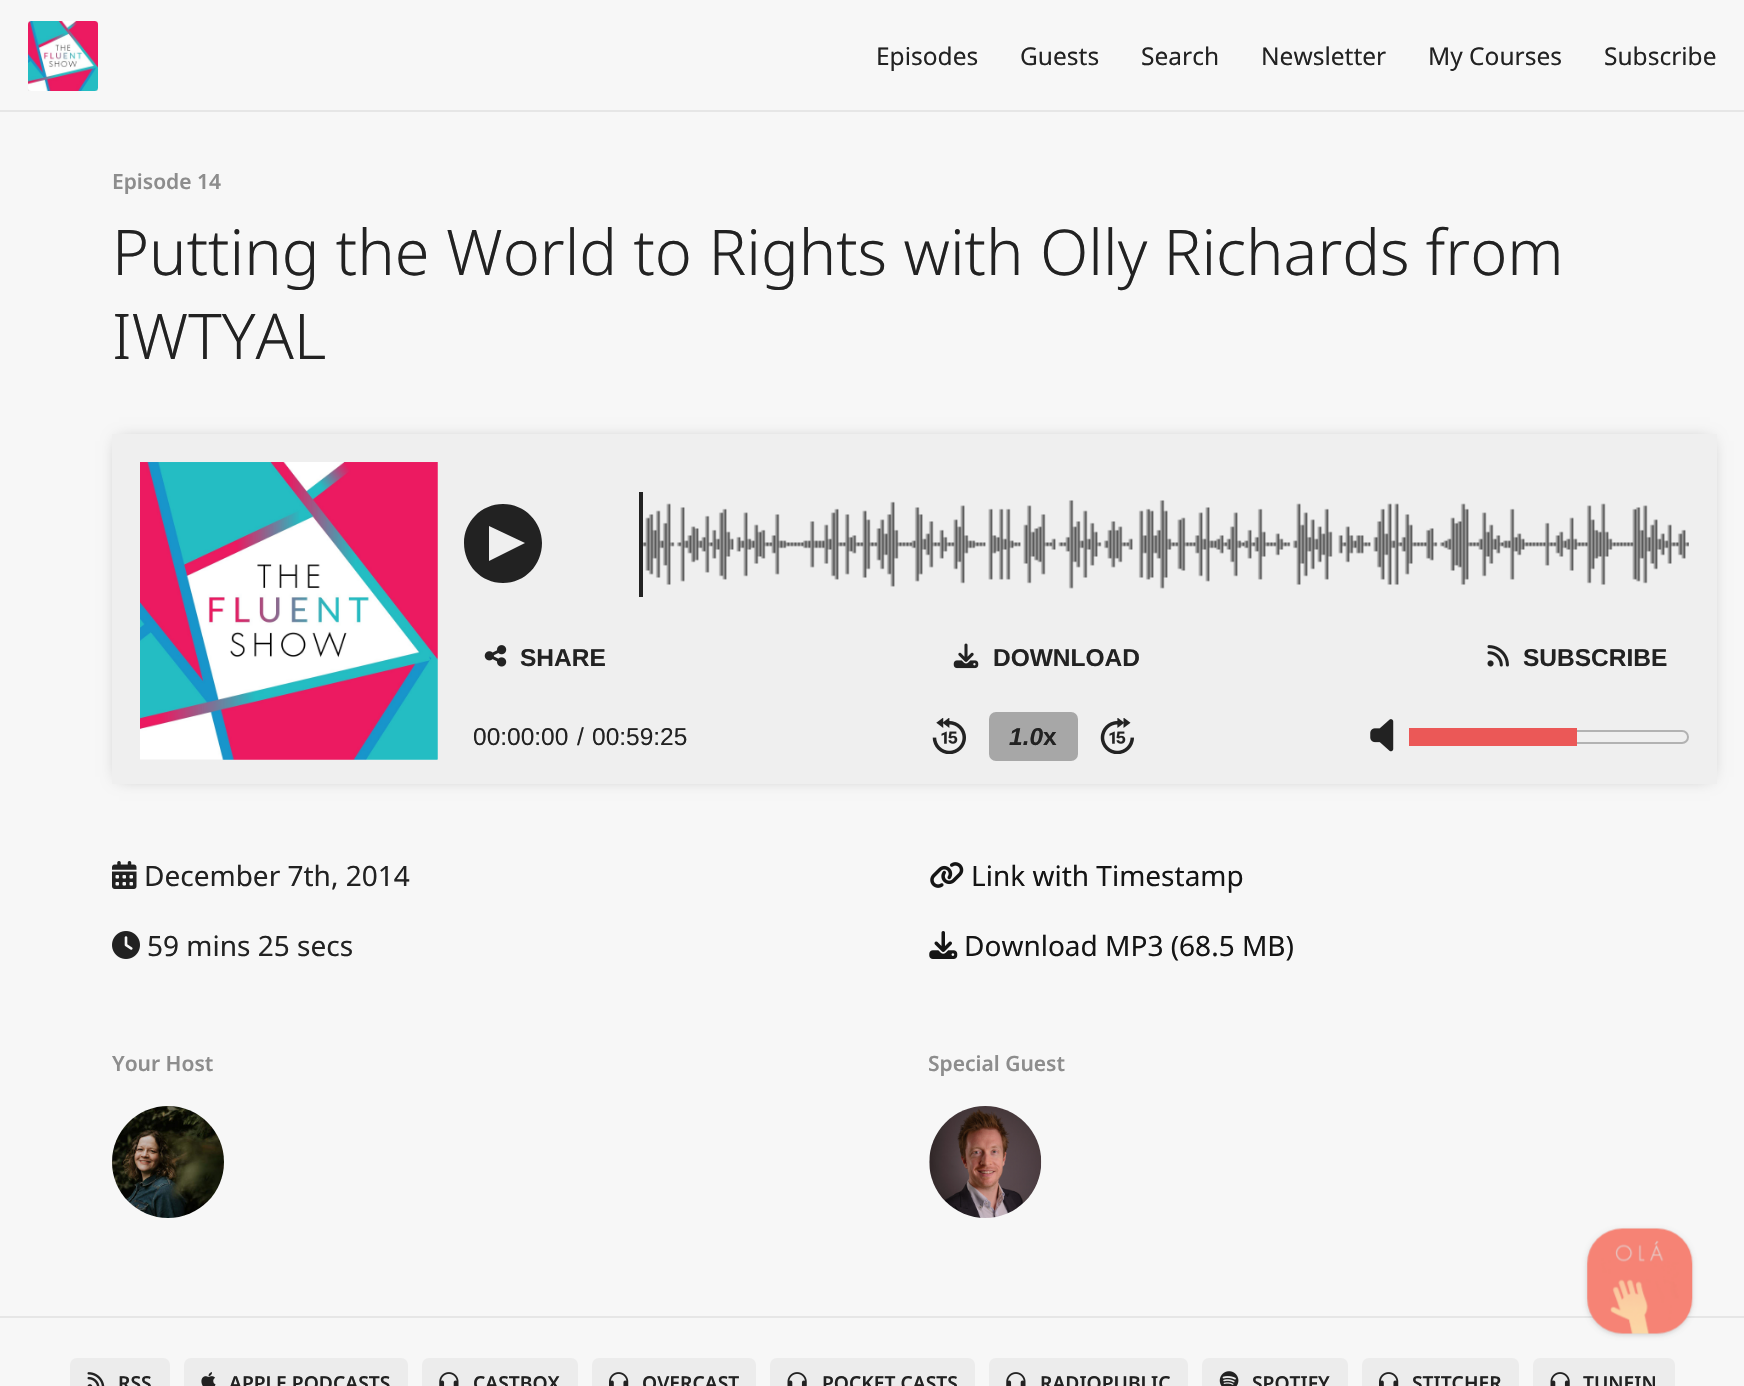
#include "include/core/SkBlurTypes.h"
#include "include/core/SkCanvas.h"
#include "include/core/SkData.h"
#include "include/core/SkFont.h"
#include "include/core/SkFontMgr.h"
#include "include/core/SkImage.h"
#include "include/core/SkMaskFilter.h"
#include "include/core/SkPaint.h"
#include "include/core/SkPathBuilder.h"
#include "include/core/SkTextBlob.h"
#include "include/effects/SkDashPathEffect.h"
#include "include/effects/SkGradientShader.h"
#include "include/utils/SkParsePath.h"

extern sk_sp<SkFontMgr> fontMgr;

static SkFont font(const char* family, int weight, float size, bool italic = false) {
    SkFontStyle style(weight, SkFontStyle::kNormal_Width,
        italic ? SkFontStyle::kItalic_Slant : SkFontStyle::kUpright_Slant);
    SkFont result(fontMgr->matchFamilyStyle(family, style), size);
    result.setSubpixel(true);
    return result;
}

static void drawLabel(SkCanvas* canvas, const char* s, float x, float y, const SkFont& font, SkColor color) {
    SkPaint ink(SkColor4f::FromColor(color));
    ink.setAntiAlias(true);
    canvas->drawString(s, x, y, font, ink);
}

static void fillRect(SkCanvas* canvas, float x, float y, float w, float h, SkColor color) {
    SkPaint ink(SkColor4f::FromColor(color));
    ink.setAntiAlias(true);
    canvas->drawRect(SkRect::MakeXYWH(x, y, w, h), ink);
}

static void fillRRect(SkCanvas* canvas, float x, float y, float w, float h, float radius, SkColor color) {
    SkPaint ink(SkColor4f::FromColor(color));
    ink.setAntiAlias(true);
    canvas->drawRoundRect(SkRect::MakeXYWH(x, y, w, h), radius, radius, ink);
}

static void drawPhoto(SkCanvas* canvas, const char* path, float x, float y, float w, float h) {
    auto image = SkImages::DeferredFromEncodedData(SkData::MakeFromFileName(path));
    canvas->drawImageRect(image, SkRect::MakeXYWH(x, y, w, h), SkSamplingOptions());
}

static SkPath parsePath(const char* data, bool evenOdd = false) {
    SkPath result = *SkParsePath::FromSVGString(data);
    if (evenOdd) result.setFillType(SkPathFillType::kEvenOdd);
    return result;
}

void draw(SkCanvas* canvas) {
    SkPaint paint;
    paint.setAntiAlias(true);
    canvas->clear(0xFFF7F7F7);
    fillRect(canvas, 0, 110, 1744, 2, 0xFFE6E6E6);
    fillRect(canvas, 28, 21, 70, 70, 0xFFEBEBEB);
    drawPhoto(canvas, "assets/img1.png", 28, 21, 70, 70);
    SkFont font1 = font("Noto Sans", 400, 24.5f);
    drawLabel(canvas, "Episodes", 876, 65, font1, 0xFF222222);
    drawLabel(canvas, "Guests", 1020, 65, font1, 0xFF222222);
    drawLabel(canvas, "Search", 1141, 65, font1, 0xFF222222);
    drawLabel(canvas, "Newsletter", 1261, 65, font1, 0xFF222222);
    drawLabel(canvas, "My Courses", 1428, 65, font1, 0xFF222222);
    drawLabel(canvas, "Subscribe", 1604, 65, font1, 0xFF222222);
    SkFont font2 = font("Noto Sans", 600, 21);
    drawLabel(canvas, "Episode 14", 112, 189, font2, 0xFF8D8D8D);
    SkFont font3 = font("Noto Sans", 300, 63);
    drawLabel(canvas, "Putting the World to Rights with Olly Richards from", 112, 275, font3, 0xFF222222);
    drawLabel(canvas, "IWTYAL", 112, 359, font3, 0xFF222222);
    paint.setColor(0x4D000000);
    paint.setMaskFilter(SkMaskFilter::MakeBlur(kNormal_SkBlurStyle, 8));
    canvas->drawRect(SkRect::MakeXYWH(119, 441, 1591, 336), paint);
    paint.setMaskFilter(nullptr);
    fillRect(canvas, 112, 434, 1605, 350, 0xFFEFEFEF);
    drawPhoto(canvas, "assets/img2.png", 140, 462, 298, 298);
    drawPhoto(canvas, "assets/img3.png", 222, 462, 216, 298);
    paint.setColor(0xFF222222);
    canvas->drawPath(parsePath("M503 504C481 504 464 522 464 543C464 565 481 583 503 583C525 583 542 565 542 543C542 522 525 504 503 504ZM489 561V526L525 543Z"), paint);
    fillRect(canvas, 639, 492, 4, 105, 0xFF222222);
    drawPhoto(canvas, "assets/img4.png", 643, 500, 1046, 89);
    drawPhoto(canvas, "assets/img5.png", 484, 645, 23, 22);
    SkFont font4 = font("Liberation Sans", 700, 24.5f);
    drawLabel(canvas, "SHARE", 520, 666, font4, 0xFF222222);
    drawPhoto(canvas, "assets/img6.png", 953, 643, 26, 26);
    drawLabel(canvas, "DOWNLOAD", 993, 666, font4, 0xFF222222);
    drawPhoto(canvas, "assets/img7.png", 1487, 645, 22, 22);
    drawLabel(canvas, "SUBSCRIBE", 1523, 666, font4, 0xFF222222);
    SkFont font5 = font("Liberation Sans", 400, 24.5f);
    drawLabel(canvas, "00:00:00", 473, 745, font5, 0xFF222222);
    drawLabel(canvas, "/", 577, 745, font5, 0xFF222222);
    drawLabel(canvas, "00:59:25", 592, 745, font5, 0xFF222222);
    drawPhoto(canvas, "assets/img8.png", 932, 718, 34, 36);
    fillRRect(canvas, 989, 712, 89, 49, 7, 0xFFA7A7A7);
    SkFont font6 = font("Liberation Sans", 700, 24.5f, true);
    drawLabel(canvas, "1.0", 1009, 745, font6, 0xFF222222);
    drawLabel(canvas, "x", 1043, 745, font4, 0xFF222222);
    drawPhoto(canvas, "assets/img9.png", 1100, 718, 34, 36);
    drawPhoto(canvas, "assets/img10.png", 1370, 719, 24, 33);
    paint.setStroke(true);
    paint.setStrokeWidth(2);
    paint.setColor(0xFFB2B2B2);
    canvas->drawRoundRect(SkRect::MakeXYWH(1410, 731, 278, 12), 6, 6, paint);
    fillRect(canvas, 1409, 728, 168, 18, 0xFFEB5857);
    drawPhoto(canvas, "assets/img11.png", 112, 861, 25, 28);
    SkFont font7 = font("Noto Sans", 400, 28);
    drawLabel(canvas, "December 7th, 2014", 144, 886, font7, 0xFF222222);
    drawPhoto(canvas, "assets/img12.png", 112, 931, 28, 28);
    drawLabel(canvas, "59 mins 25 secs", 147, 956, font7, 0xFF222222);
    drawPhoto(canvas, "assets/img13.png", 930, 862, 34, 26);
    drawLabel(canvas, "Link with Timestamp", 971, 886, font7, 0xFF151515);
    drawPhoto(canvas, "assets/img14.png", 929, 931, 29, 28);
    drawLabel(canvas, "Download MP3 (68.5 MB)", 964, 956, font7, 0xFF151515);
    drawLabel(canvas, "Your Host", 112, 1071, font2, 0xFF8D8D8D);
    drawPhoto(canvas, "assets/img15.png", 112, 1106, 112, 112);
    drawLabel(canvas, "Special Guest", 928, 1071, font2, 0xFF8D8D8D);
    drawPhoto(canvas, "assets/img16.png", 929, 1106, 113, 112);
    fillRect(canvas, 0, 1316, 1744, 2, 0xFFE6E6E6);
    fillRRect(canvas, 70, 1358, 100, 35, 7, 0xFFECECEC);
    drawPhoto(canvas, "assets/img17.png", 87, 1372, 18, 14);
    SkFont font8 = font("Noto Sans", 600, 19.25f);
    drawLabel(canvas, "RSS", 118, 1390, font8, 0xFF222222);
    fillRRect(canvas, 184, 1358, 224, 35, 7, 0xFFECECEC);
    drawPhoto(canvas, "assets/img18.png", 201, 1372, 15, 14);
    drawLabel(canvas, "APPLE PODCASTS", 229, 1390, font8, 0xFF222222);
    fillRRect(canvas, 422, 1358, 156, 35, 7, 0xFFECECEC);
    drawPhoto(canvas, "assets/img19.png", 439, 1372, 20, 14);
    drawLabel(canvas, "CASTBOX", 473, 1390, font8, 0xFF222222);
    fillRRect(canvas, 592, 1358, 164, 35, 7, 0xFFECECEC);
    drawPhoto(canvas, "assets/img20.png", 609, 1372, 20, 14);
    drawLabel(canvas, "OVERCAST", 642, 1390, font8, 0xFF222222);
    fillRRect(canvas, 770, 1358, 205, 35, 7, 0xFFECECEC);
    drawPhoto(canvas, "assets/img21.png", 787, 1372, 20, 14);
    drawLabel(canvas, "POCKET CASTS", 822, 1390, font8, 0xFF222222);
    fillRRect(canvas, 989, 1358, 199, 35, 7, 0xFFECECEC);
    drawPhoto(canvas, "assets/img19.png", 1006, 1372, 20, 14);
    drawLabel(canvas, "RADIOPUBLIC", 1040, 1390, font8, 0xFF222222);
    fillRRect(canvas, 1202, 1358, 146, 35, 7, 0xFFECECEC);
    drawPhoto(canvas, "assets/img22.png", 1219, 1371, 20, 15);
    drawLabel(canvas, "SPOTIFY", 1252, 1390, font8, 0xFF222222);
    fillRRect(canvas, 1362, 1358, 157, 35, 7, 0xFFECECEC);
    drawPhoto(canvas, "assets/img20.png", 1379, 1372, 20, 14);
    drawLabel(canvas, "STITCHER", 1412, 1390, font8, 0xFF222222);
    fillRRect(canvas, 1533, 1358, 142, 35, 7, 0xFFECECEC);
    drawPhoto(canvas, "assets/img21.png", 1550, 1372, 20, 14);
    drawLabel(canvas, "TUNEIN", 1583, 1390, font8, 0xFF222222);
    paint.setStroke(false);
    paint.setColor(0x0F000000);
    paint.setMaskFilter(SkMaskFilter::MakeBlur(kNormal_SkBlurStyle, 2));
    canvas->drawRoundRect(SkRect::MakeXYWH(1587, 1230, 105, 105), 35, 35, paint);
    paint.setMaskFilter(nullptr);
    paint.setColor(0x1A000000);
    paint.setMaskFilter(SkMaskFilter::MakeBlur(kNormal_SkBlurStyle, 2.5f));
    canvas->drawRoundRect(SkRect::MakeXYWH(1587, 1230, 105, 105), 35, 35, paint);
    paint.setMaskFilter(nullptr);
    drawPhoto(canvas, "assets/img23.png", 1587, 1228, 106, 106);
}
